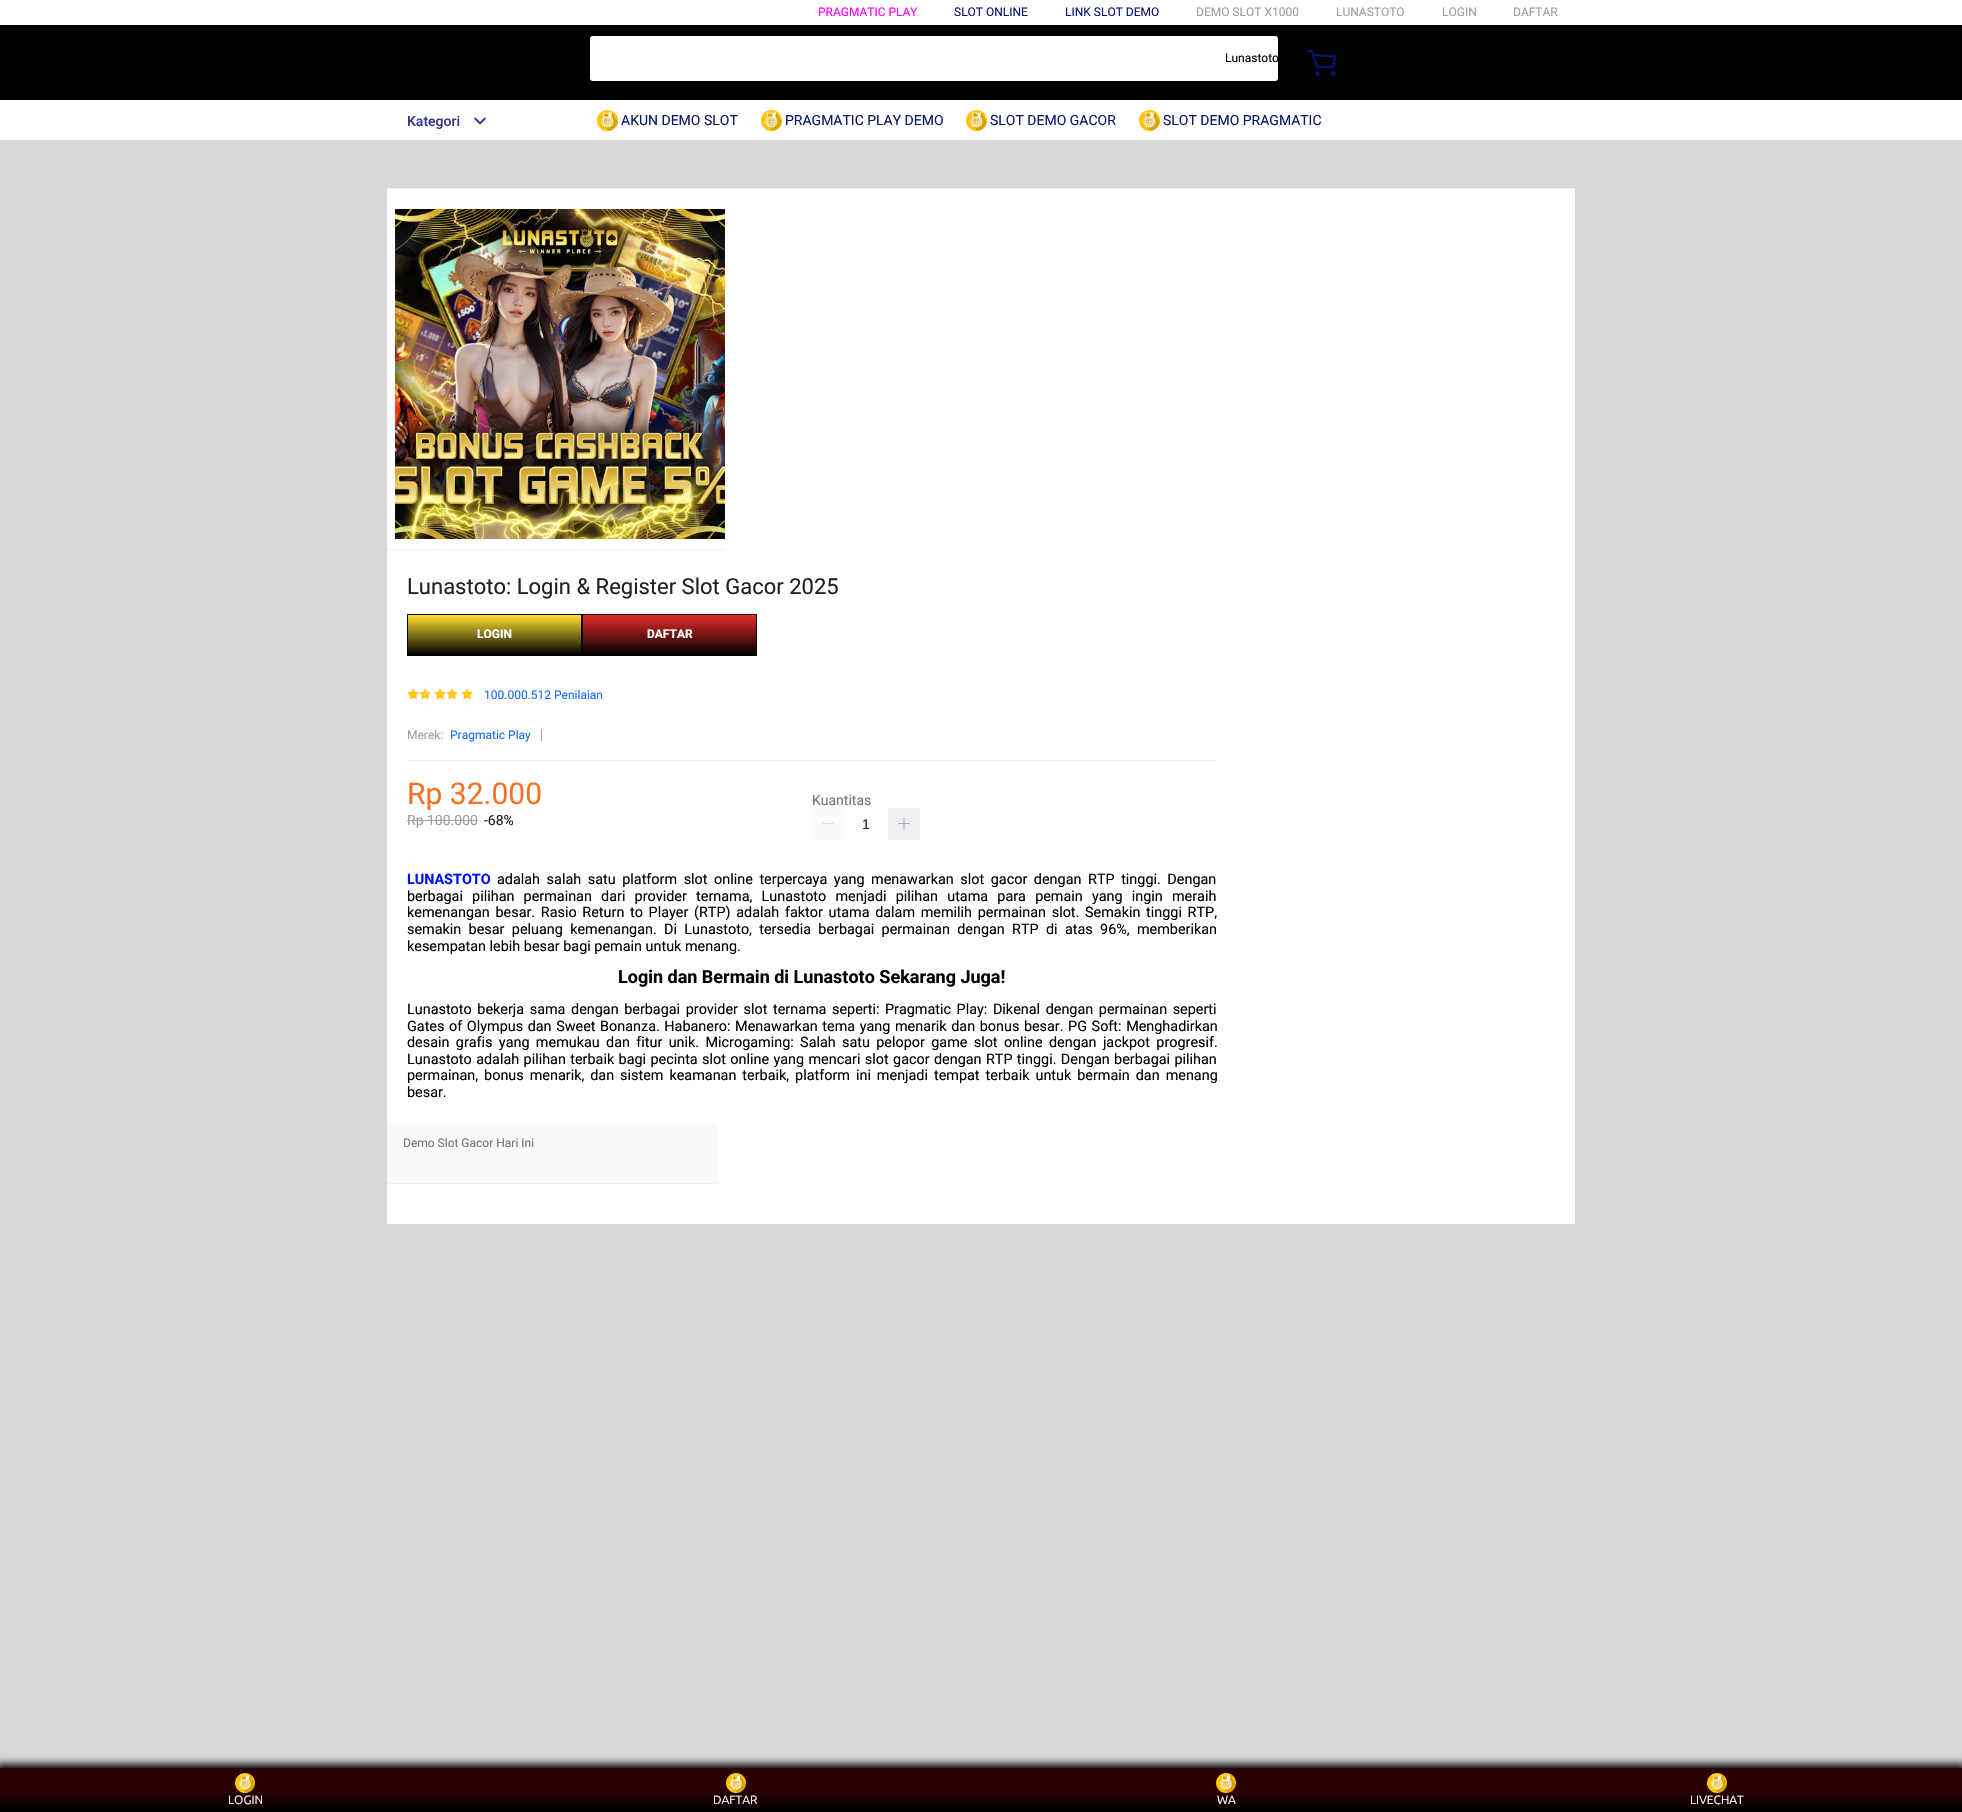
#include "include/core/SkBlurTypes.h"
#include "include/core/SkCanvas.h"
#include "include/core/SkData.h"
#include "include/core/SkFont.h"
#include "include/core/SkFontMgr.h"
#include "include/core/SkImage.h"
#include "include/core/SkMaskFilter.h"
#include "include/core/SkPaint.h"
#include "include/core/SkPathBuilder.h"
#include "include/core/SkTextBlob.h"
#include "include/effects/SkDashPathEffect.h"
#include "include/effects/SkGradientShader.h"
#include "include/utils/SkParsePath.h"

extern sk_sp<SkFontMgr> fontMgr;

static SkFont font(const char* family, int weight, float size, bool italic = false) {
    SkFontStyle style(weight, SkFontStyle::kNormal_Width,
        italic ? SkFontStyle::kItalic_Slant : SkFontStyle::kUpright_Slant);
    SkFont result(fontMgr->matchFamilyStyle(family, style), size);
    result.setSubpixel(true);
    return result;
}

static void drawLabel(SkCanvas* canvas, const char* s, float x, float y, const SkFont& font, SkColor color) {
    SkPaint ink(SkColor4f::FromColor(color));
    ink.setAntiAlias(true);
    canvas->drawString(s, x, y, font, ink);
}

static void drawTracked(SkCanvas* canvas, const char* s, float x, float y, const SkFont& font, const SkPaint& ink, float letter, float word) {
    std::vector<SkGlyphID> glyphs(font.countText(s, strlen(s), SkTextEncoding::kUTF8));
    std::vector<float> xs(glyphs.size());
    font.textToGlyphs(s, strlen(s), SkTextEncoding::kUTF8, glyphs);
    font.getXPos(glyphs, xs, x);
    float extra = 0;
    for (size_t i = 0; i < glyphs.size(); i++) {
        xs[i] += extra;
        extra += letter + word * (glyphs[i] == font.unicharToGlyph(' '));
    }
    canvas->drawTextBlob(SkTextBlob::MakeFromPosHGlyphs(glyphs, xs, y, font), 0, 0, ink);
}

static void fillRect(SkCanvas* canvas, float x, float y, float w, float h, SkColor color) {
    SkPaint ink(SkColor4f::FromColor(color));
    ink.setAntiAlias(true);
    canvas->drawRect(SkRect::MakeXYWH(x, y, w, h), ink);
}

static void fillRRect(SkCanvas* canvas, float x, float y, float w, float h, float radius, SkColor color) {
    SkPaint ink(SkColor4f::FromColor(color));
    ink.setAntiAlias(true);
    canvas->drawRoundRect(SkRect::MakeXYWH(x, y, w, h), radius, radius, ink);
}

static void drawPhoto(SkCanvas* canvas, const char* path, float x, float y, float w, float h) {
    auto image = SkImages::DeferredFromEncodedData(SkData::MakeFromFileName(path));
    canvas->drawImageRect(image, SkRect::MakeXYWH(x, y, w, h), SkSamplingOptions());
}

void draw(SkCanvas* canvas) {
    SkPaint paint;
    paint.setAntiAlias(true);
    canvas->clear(0xFFD8D8D8);
    fillRect(canvas, 0, 0, 1962, 140, 0xFFFFFFFF);
    SkFont font1 = font("Roboto", 400, 12);
    drawLabel(canvas, "PRAGMATIC PLAY", 818, 16, font1, 0xFFFF00FF);
    drawLabel(canvas, "SLOT ONLINE", 954, 16, font1, 0xFF0F136D);
    drawLabel(canvas, "LINK SLOT DEMO", 1065, 16, font1, 0xFF0F136D);
    drawLabel(canvas, "DEMO SLOT X1000", 1196, 16, font1, 0xFF9E9E9E);
    drawLabel(canvas, "LUNASTOTO", 1336, 16, font1, 0xFF9E9E9E);
    drawLabel(canvas, "LOGIN", 1442, 16, font1, 0xFF9E9E9E);
    drawLabel(canvas, "DAFTAR", 1513, 16, font1, 0xFF9E9E9E);
    fillRect(canvas, 0, 25, 1962, 75, 0xFF000000);
    fillRRect(canvas, 590, 36, 688, 45, 3, 0xFFFFFFFF);
    canvas->save();
    canvas->clipRect(SkRect::MakeXYWH(590, 36, 688, 45));
    drawLabel(canvas, "Lunastoto", 1225, 62, font1, 0xFF000000);
    canvas->restore();
    drawPhoto(canvas, "assets/img1.png", 1306, 50, 30, 26);
    SkFont font2 = font("Roboto", 500, 14);
    drawLabel(canvas, "Kategori", 407, 126, font2, 0xFF333683);
    drawPhoto(canvas, "assets/img2.png", 474, 117, 12, 8);
    drawPhoto(canvas, "assets/img3.png", 597, 110, 21, 21);
    SkFont font3 = font("Roboto", 400, 14);
    drawLabel(canvas, "AKUN DEMO SLOT", 621, 125, font3, 0xFF0F136D);
    drawPhoto(canvas, "assets/img4.png", 761, 110, 21, 21);
    drawLabel(canvas, "PRAGMATIC PLAY DEMO", 785, 125, font3, 0xFF0F136D);
    drawPhoto(canvas, "assets/img3.png", 966, 110, 21, 21);
    drawLabel(canvas, "SLOT DEMO GACOR", 990, 125, font3, 0xFF0F136D);
    drawPhoto(canvas, "assets/img3.png", 1139, 110, 21, 21);
    drawLabel(canvas, "SLOT DEMO PRAGMATIC", 1163, 125, font3, 0xFF0F136D);
    fillRect(canvas, 387, 188, 1188, 1, 0xFFEFF0F5);
    fillRect(canvas, 387, 189, 1188, 1035, 0xFFFFFFFF);
    fillRect(canvas, 387, 549, 338, 1, 0xFFEFF0F5);
    drawPhoto(canvas, "assets/img5.png", 395, 209, 330, 330);
    SkFont font4 = font("Roboto", 400, 22);
    drawLabel(canvas, "Lunastoto: Login & Register Slot Gacor 2025", 407, 594, font4, 0xFF212121);
    {
        const SkColor colors[] = {0xFFFFE02F, 0xFF000000};
        const float stops[] = {0, 1};
        const SkPoint ends[] = {{495, 615}, {495, 655}};
        paint.setShader(SkGradientShader::MakeLinear(ends, colors, stops, 2, SkTileMode::kClamp));
        paint.setAlpha(255);
    }
    canvas->drawRect(SkRect::MakeXYWH(408, 615, 173, 40), paint);
    paint.setStroke(true);
    paint.setStrokeWidth(1);
    paint.setShader(nullptr);
    paint.setColor(0xFF000000);
    canvas->drawRect(SkRect::MakeXYWH(407.5f, 614.5f, 174, 41), paint);
    SkFont font5 = font("Roboto", 700, 12);
    drawLabel(canvas, "LOGIN", 477, 638, font5, 0xFFFFFFFF);
    paint.setStroke(false);
    {
        const SkColor colors[] = {0xFFE52C26, 0xFF000000};
        const float stops[] = {0, 1};
        const SkPoint ends[] = {{670, 615}, {670, 655}};
        paint.setShader(SkGradientShader::MakeLinear(ends, colors, stops, 2, SkTileMode::kClamp));
        paint.setAlpha(255);
    }
    canvas->drawRect(SkRect::MakeXYWH(583, 615, 173, 40), paint);
    paint.setStroke(true);
    paint.setShader(nullptr);
    paint.setColor(0xFF000000);
    canvas->drawRect(SkRect::MakeXYWH(582.5f, 614.5f, 174, 41), paint);
    drawLabel(canvas, "DAFTAR", 647, 638, font5, 0xFFFFFFFF);
    drawPhoto(canvas, "assets/img6.png", 407, 688, 12, 12);
    drawPhoto(canvas, "assets/img6.png", 419, 688, 12, 12);
    drawPhoto(canvas, "assets/img6.png", 434, 688, 12, 12);
    drawPhoto(canvas, "assets/img6.png", 446, 688, 12, 12);
    drawPhoto(canvas, "assets/img6.png", 461, 688, 12, 12);
    drawLabel(canvas, "100.000.512 Penilaian", 484, 699, font1, 0xFF136CFF);
    fillRect(canvas, 407, 760, 810, 1, 0xFFEFF0F5);
    drawLabel(canvas, "Merek:", 407, 739, font1, 0xFF9E9E9E);
    drawLabel(canvas, "Pragmatic Play", 450, 739, font1, 0xFF136CFF);
    fillRect(canvas, 541, 729, 1, 12, 0xFF9E9E9E);
    SkFont font6 = font("Roboto", 400, 30);
    drawLabel(canvas, "Rp 32.000", 407, 804, font6, 0xFFF57224);
    drawLabel(canvas, "Rp 100.000", 407, 825, font3, 0xFF9E9E9E);
    fillRect(canvas, 407, 820, 71, 1, 0xFF9E9E9E);
    drawLabel(canvas, "-68%", 484, 825, font3, 0xFF212121);
    drawLabel(canvas, "Kuantitas", 812, 805, font3, 0xFF757575);
    fillRect(canvas, 812, 808, 32, 32, 0xFFFAFAFA);
    drawPhoto(canvas, "assets/img7.png", 822, 823, 12, 1);
    fillRect(canvas, 888, 808, 32, 32, 0xFFEFF0F5);
    drawPhoto(canvas, "assets/img8.png", 898, 817, 12, 13);
    SkFont font7 = font("Liberation Sans", 400, 14);
    drawLabel(canvas, "1", 862, 829, font7, 0xFF212121);
    SkFont font8 = font("Roboto", 700, 14.4f);
    drawLabel(canvas, "LUNASTOTO", 407, 884, font8, 0xFF0011FF);
    SkFont font9 = font("Roboto", 400, 14.4f);
    paint.setStroke(false);
    drawTracked(canvas, "adalah salah satu platform slot online terpercaya yang menawarkan slot gacor dengan RTP tinggi. Dengan", 497, 884, font9, paint, 0, 3);
    drawTracked(canvas, "berbagai pilihan permainan dari provider ternama, Lunastoto menjadi pilihan utama para pemain yang ingin meraih", 407, 901, font9, paint, 0, 5.6f);
    drawTracked(canvas, "kemenangan besar. Rasio Return to Player (RTP) adalah faktor utama dalam memilih permainan slot. Semakin tinggi RTP,", 407, 917, font9, paint, 0, 2.1f);
    drawTracked(canvas, "semakin besar peluang kemenangan. Di Lunastoto, tersedia berbagai permainan dengan RTP di atas 96%, memberikan", 407, 934, font9, paint, 0, 3.75f);
    drawLabel(canvas, "kesempatan lebih besar bagi pemain untuk menang.", 407, 951, font9, 0xFF000000);
    SkFont font10 = font("Roboto", 700, 18);
    drawLabel(canvas, "Login dan Bermain di Lunastoto Sekarang Juga!", 618, 983, font10, 0xFF000000);
    drawTracked(canvas, "Lunastoto bekerja sama dengan berbagai provider slot ternama seperti: Pragmatic Play: Dikenal dengan permainan seperti", 407, 1014, font9, paint, 0, 2);
    drawTracked(canvas, "Gates of Olympus dan Sweet Bonanza. Habanero: Menawarkan tema yang menarik dan bonus besar. PG Soft: Menghadirkan", 407, 1031, font9, paint, 0, 1);
    drawTracked(canvas, "desain grafis yang memukau dan fitur unik. Microgaming: Salah satu pelopor game slot online dengan jackpot progresif.", 407, 1047, font9, paint, 0, 2.75f);
    drawTracked(canvas, "Lunastoto adalah pilihan terbaik bagi pecinta slot online yang mencari slot gacor dengan RTP tinggi. Dengan berbagai pilihan", 407, 1064, font9, paint, 0, 0.8f);
    drawTracked(canvas, "permainan, bonus menarik, dan sistem keamanan terbaik, platform ini menjadi tempat terbaik untuk bermain dan menang", 407, 1080, font9, paint, 0, 2.4f);
    drawLabel(canvas, "besar.", 407, 1097, font9, 0xFF000000);
    fillRect(canvas, 387, 1124, 330, 59, 0xFFFAFAFA);
    drawLabel(canvas, "Demo Slot Gacor Hari Ini", 403, 1147, font1, 0xFF757575);
    fillRect(canvas, 387, 1183, 330, 1, 0xFFEFF0F5);
    paint.setMaskFilter(SkMaskFilter::MakeBlur(kNormal_SkBlurStyle, 4));
    canvas->drawRect(SkRect::MakeXYWH(-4, 1764, 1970, 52), paint);
    paint.setMaskFilter(nullptr);
    {
        const SkColor colors[] = {0xFF2A0000, 0xFF2A0000, 0xFF000000};
        const float stops[] = {0, 0.5f, 1};
        const SkPoint ends[] = {{981, 1768}, {981, 1812}};
        paint.setShader(SkGradientShader::MakeLinear(ends, colors, stops, 3, SkTileMode::kClamp));
        paint.setAlpha(255);
    }
    canvas->drawRect(SkRect::MakeXYWH(0, 1768, 1962, 44), paint);
    drawPhoto(canvas, "assets/img9.png", 235, 1773, 20, 20);
    SkFont font11 = font("Ubuntu", 400, 12);
    drawLabel(canvas, "LOGIN", 228, 1804, font11, 0xFFFFFFFF);
    drawPhoto(canvas, "assets/img10.png", 726, 1773, 20, 20);
    drawLabel(canvas, "DAFTAR", 713, 1804, font11, 0xFFFFFFFF);
    drawPhoto(canvas, "assets/img10.png", 1216, 1773, 20, 20);
    drawLabel(canvas, "WA", 1217, 1804, font11, 0xFFFFFFFF);
    drawPhoto(canvas, "assets/img10.png", 1707, 1773, 20, 20);
    drawLabel(canvas, "LIVECHAT", 1690, 1804, font11, 0xFFFFFFFF);
}
